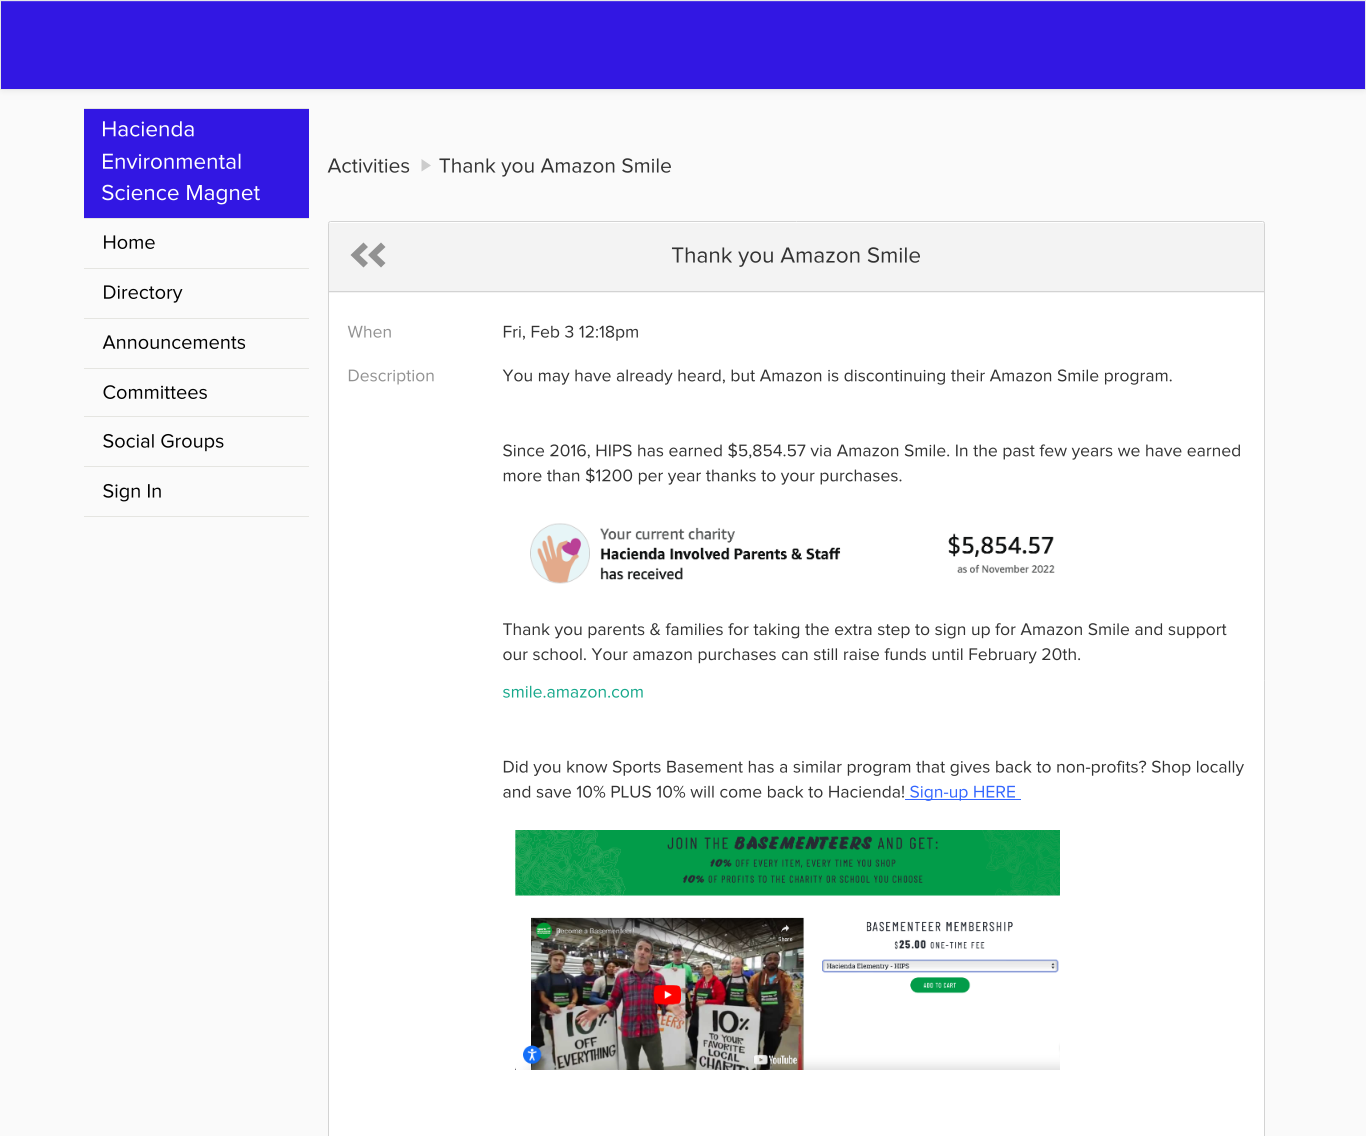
#include "include/core/SkBlurTypes.h"
#include "include/core/SkCanvas.h"
#include "include/core/SkData.h"
#include "include/core/SkFont.h"
#include "include/core/SkFontMgr.h"
#include "include/core/SkImage.h"
#include "include/core/SkMaskFilter.h"
#include "include/core/SkPaint.h"
#include "include/core/SkPathBuilder.h"
#include "include/core/SkTextBlob.h"
#include "include/effects/SkDashPathEffect.h"
#include "include/effects/SkGradientShader.h"
#include "include/utils/SkParsePath.h"

extern sk_sp<SkFontMgr> fontMgr;

static void fillRect(SkCanvas* canvas, float x, float y, float w, float h, SkColor color) {
    SkPaint ink(SkColor4f::FromColor(color));
    ink.setAntiAlias(true);
    canvas->drawRect(SkRect::MakeXYWH(x, y, w, h), ink);
}

static void drawPhoto(SkCanvas* canvas, const char* path, float x, float y, float w, float h) {
    auto image = SkImages::DeferredFromEncodedData(SkData::MakeFromFileName(path));
    canvas->drawImageRect(image, SkRect::MakeXYWH(x, y, w, h), SkSamplingOptions());
}

static SkPath parsePath(const char* data, bool evenOdd = false) {
    SkPath result = *SkParsePath::FromSVGString(data);
    if (evenOdd) result.setFillType(SkPathFillType::kEvenOdd);
    return result;
}

void draw(SkCanvas* canvas) {
    SkPaint paint;
    paint.setAntiAlias(true);
    canvas->clear(0xFFFAFAFA);
    paint.setColor(0x12000000);
    paint.setMaskFilter(SkMaskFilter::MakeBlur(kNormal_SkBlurStyle, 3));
    canvas->drawRect(SkRect::MakeXYWH(0, 1, 1366, 90), paint);
    paint.setMaskFilter(nullptr);
    fillRect(canvas, 1, 2, 1364, 87, 0xFF3217E3);
    fillRect(canvas, 1, 1, 1364, 1, 0xFF513AE7);
    paint.setStroke(true);
    paint.setStrokeWidth(1);
    paint.setColor(0xFFE7E7E7);
    canvas->drawRect(SkRect::MakeXYWH(0.5f, 0.5f, 1365, 89), paint);
    fillRect(canvas, 84, 516, 225, 1, 0xFFE5E5E1);
    fillRect(canvas, 84, 108, 225, 1, 0xFFE5E5E1);
    fillRect(canvas, 84, 109, 225, 109, 0xFF3217E3);
    drawPhoto(canvas, "assets/img1.png", 103, 121, 91, 16);
    drawPhoto(canvas, "assets/img2.png", 103, 153, 138, 16);
    drawPhoto(canvas, "assets/img3.png", 102, 184, 158, 21);
    fillRect(canvas, 84, 218, 225, 1, 0xFFE5E5E1);
    drawPhoto(canvas, "assets/img4.png", 104, 235, 51, 14);
    fillRect(canvas, 84, 268, 225, 1, 0xFFE5E5E1);
    drawPhoto(canvas, "assets/img5.png", 104, 285, 79, 18);
    fillRect(canvas, 84, 318, 225, 1, 0xFFE5E5E1);
    drawPhoto(canvas, "assets/img6.png", 102, 335, 144, 14);
    fillRect(canvas, 84, 368, 225, 1, 0xFFE5E5E1);
    drawPhoto(canvas, "assets/img7.png", 103, 385, 104, 14);
    fillRect(canvas, 84, 416, 225, 1, 0xFFE5E5E1);
    drawPhoto(canvas, "assets/img8.png", 103, 433, 121, 19);
    fillRect(canvas, 84, 466, 225, 1, 0xFFE5E5E1);
    drawPhoto(canvas, "assets/img9.png", 103, 483, 58, 19);
    drawPhoto(canvas, "assets/img10.png", 327, 158, 83, 15);
    paint.setStroke(false);
    paint.setColor(0xFFCCCCCC);
    canvas->drawPath(parsePath("M421.5 171.5V159L431 165.5Z"), paint);
    drawPhoto(canvas, "assets/img11.png", 439, 158, 232, 19);
    paint.setColor(0xFFFFFFFF);
    canvas->drawRoundRect(SkRect::MakeXYWH(328.5f, 221.5f, 936, 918), 2, 2, paint);
    paint.setStroke(true);
    paint.setColor(0xFFD3D3D3);
    canvas->drawRoundRect(SkRect::MakeXYWH(328.5f, 221.5f, 936, 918), 2, 2, paint);
    fillRect(canvas, 329, 223, 935, 70, 0xFFF3F3F3);
    fillRect(canvas, 329, 291, 935, 1, 0xFFD3D3D3);
    paint.setStroke(false);
    paint.setColor(0xFF929292);
    canvas->drawPath(parsePath("M368 247L359.5 255L368 263L363.5 267.5L350.5 255L363.5 242.5ZM385.5 247L377 255L385.5 263L381 267.5L368 255L381 242.5Z"), paint);
    drawPhoto(canvas, "assets/img12.png", 671, 247, 249, 20);
    drawPhoto(canvas, "assets/img13.png", 347, 325, 44, 13);
    drawPhoto(canvas, "assets/img14.png", 503, 325, 135, 16);
    drawPhoto(canvas, "assets/img15.png", 348, 369, 86, 16);
    drawPhoto(canvas, "assets/img16.png", 502, 369, 670, 16);
    drawPhoto(canvas, "assets/img17.png", 503, 442, 737, 18);
    drawPhoto(canvas, "assets/img18.png", 503, 467, 399, 18);
    drawPhoto(canvas, "assets/img19.png", 530, 523, 525, 61);
    drawPhoto(canvas, "assets/img20.png", 503, 623, 724, 16);
    drawPhoto(canvas, "assets/img21.png", 503, 648, 578, 16);
    drawPhoto(canvas, "assets/img22.png", 503, 685, 140, 13);
    drawPhoto(canvas, "assets/img23.png", 503, 760, 741, 16);
    drawPhoto(canvas, "assets/img24.png", 503, 785, 401, 13);
    fillRect(canvas, 905, 799, 116, 1, 0xFF3366FF);
    drawPhoto(canvas, "assets/img25.png", 910, 785, 105, 16);
    drawPhoto(canvas, "assets/img26.png", 515, 830, 545, 240);
}
